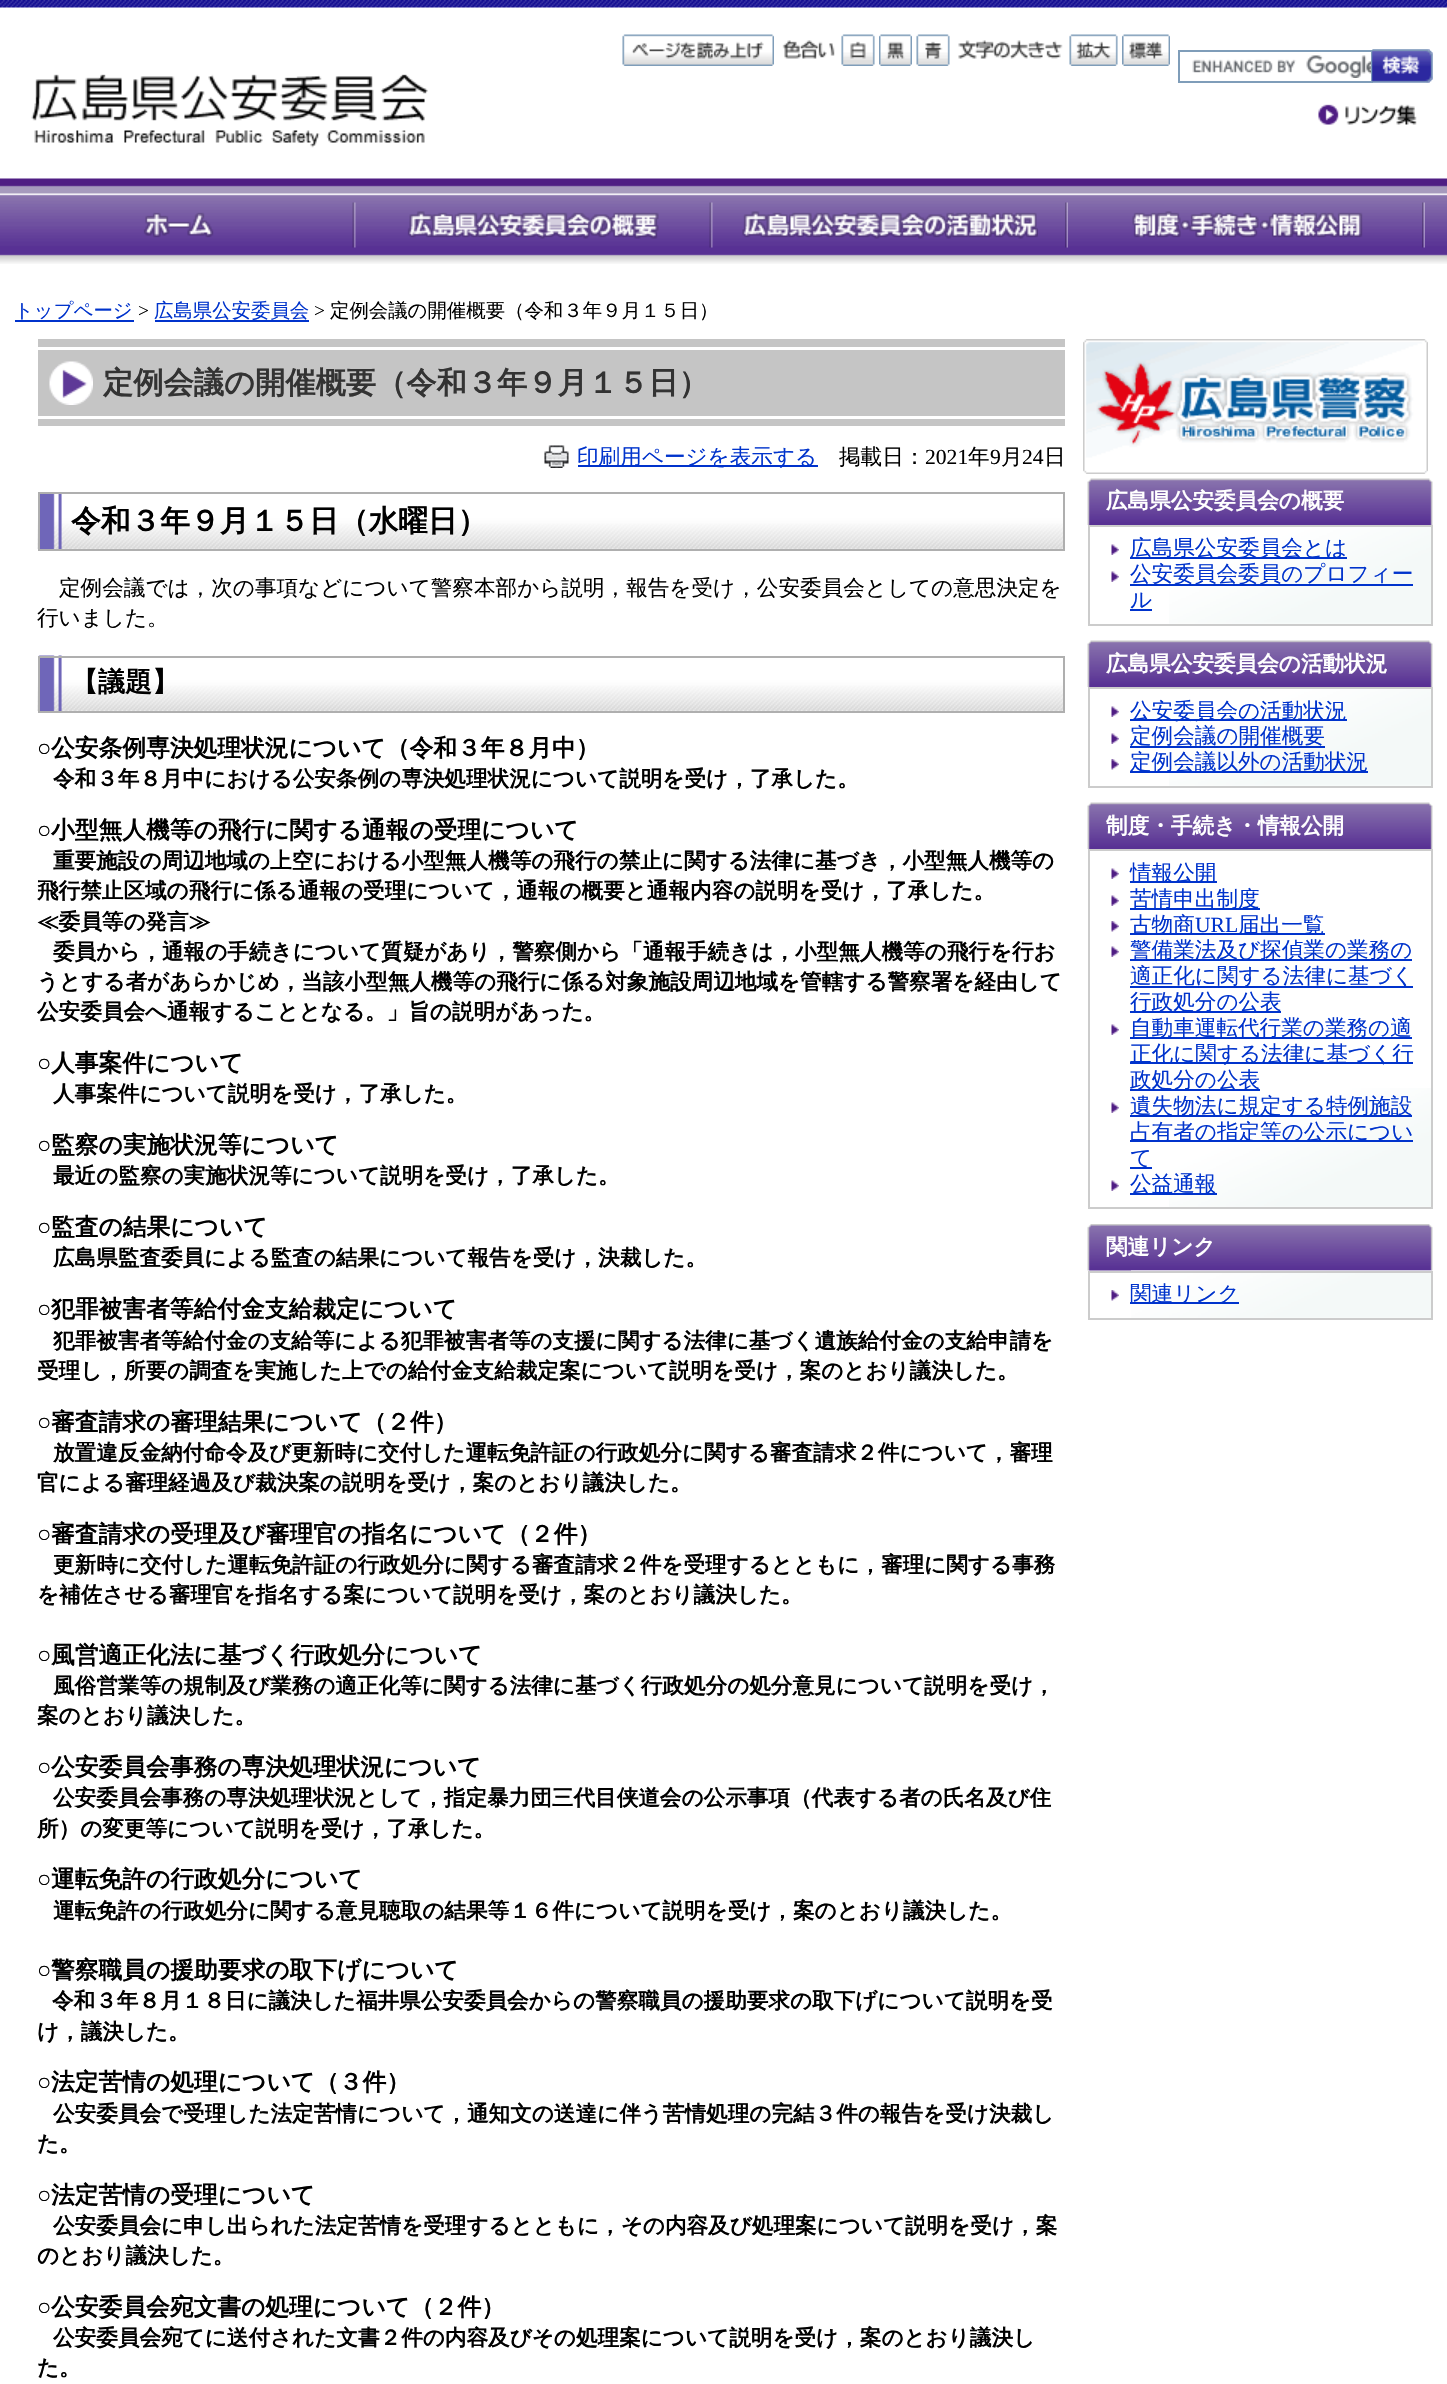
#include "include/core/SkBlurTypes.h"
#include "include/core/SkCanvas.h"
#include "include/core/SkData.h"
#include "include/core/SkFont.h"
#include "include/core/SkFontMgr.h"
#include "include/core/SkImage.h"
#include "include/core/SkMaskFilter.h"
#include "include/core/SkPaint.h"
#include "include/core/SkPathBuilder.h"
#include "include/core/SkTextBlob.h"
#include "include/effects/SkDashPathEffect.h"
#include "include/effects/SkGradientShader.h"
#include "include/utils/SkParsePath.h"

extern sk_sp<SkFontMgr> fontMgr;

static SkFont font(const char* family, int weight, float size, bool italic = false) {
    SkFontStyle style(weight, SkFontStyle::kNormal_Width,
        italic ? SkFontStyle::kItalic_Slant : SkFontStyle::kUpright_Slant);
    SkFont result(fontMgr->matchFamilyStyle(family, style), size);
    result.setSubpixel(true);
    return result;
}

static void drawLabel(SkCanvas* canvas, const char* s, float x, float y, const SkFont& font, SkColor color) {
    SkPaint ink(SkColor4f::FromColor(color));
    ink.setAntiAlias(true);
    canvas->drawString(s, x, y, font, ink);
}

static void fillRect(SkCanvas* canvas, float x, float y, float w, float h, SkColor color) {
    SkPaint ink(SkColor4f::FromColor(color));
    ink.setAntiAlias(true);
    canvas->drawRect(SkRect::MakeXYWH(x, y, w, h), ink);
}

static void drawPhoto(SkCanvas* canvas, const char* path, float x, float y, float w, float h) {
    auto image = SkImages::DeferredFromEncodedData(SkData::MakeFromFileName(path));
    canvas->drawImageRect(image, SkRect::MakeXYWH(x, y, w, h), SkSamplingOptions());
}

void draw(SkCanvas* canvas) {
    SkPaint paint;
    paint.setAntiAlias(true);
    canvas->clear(0xFFFFFFFF);
    drawPhoto(canvas, "assets/img1.png", 0, 0, 1447, 8);
    drawPhoto(canvas, "assets/img2.png", 622, 34, 152, 32);
    drawPhoto(canvas, "assets/img3.png", 782, 40, 53, 19);
    drawPhoto(canvas, "assets/img4.png", 841, 34, 34, 32);
    drawPhoto(canvas, "assets/img5.png", 879, 34, 33, 32);
    drawPhoto(canvas, "assets/img6.png", 916, 34, 34, 32);
    drawPhoto(canvas, "assets/img7.png", 958, 40, 105, 19);
    drawPhoto(canvas, "assets/img8.png", 1069, 34, 49, 32);
    drawPhoto(canvas, "assets/img9.png", 1122, 34, 48, 32);
    drawPhoto(canvas, "assets/img10.png", 1192, 55, 179, 23);
    paint.setStroke(true);
    paint.setStrokeWidth(2);
    paint.setColor(0xFF7F9DB9);
    canvas->drawRect(SkRect::MakeXYWH(1179, 51, 193, 31), paint);
    drawPhoto(canvas, "assets/img11.png", 1372, 49, 61, 34);
    drawPhoto(canvas, "assets/img12.png", 1372, 49, 61, 34);
    drawPhoto(canvas, "assets/img13.png", 31, 74, 397, 74);
    drawPhoto(canvas, "assets/img14.png", 1318, 104, 99, 21);
    drawPhoto(canvas, "assets/img15.png", 0, 178, 1447, 86);
    drawPhoto(canvas, "assets/img16.png", 352, 202, 4, 46);
    drawPhoto(canvas, "assets/img17.png", 143, 212, 71, 26);
    drawPhoto(canvas, "assets/img16.png", 709, 202, 4, 46);
    drawPhoto(canvas, "assets/img18.png", 407, 211, 252, 28);
    drawPhoto(canvas, "assets/img19.png", 1065, 202, 3, 46);
    drawPhoto(canvas, "assets/img20.png", 742, 211, 296, 28);
    drawPhoto(canvas, "assets/img21.png", 1422, 202, 3, 46);
    drawPhoto(canvas, "assets/img22.png", 1132, 211, 231, 27);
    SkFont font1 = font("WenQuanYi Zen Hei", 500, 19.4f);
    drawLabel(canvas, "トップページ", 14, 317, font1, 0xFF0033CC);
    fillRect(canvas, 15, 320, 119, 2, 0xFF0033CC);
    SkFont font2 = font("Liberation Serif", 400, 19.4f);
    drawLabel(canvas, ">", 138, 317, font2, 0xFF000000);
    fillRect(canvas, 155, 320, 154, 2, 0xFF0033CC);
    drawLabel(canvas, "広島県公安委員会", 154, 317, font1, 0xFF0033CC);
    drawLabel(canvas, ">", 314, 317, font2, 0xFF000000);
    drawLabel(canvas, "定例会議の開催概要（令和３年９月１５日）", 330, 317, font1, 0xFF000000);
    fillRect(canvas, 38, 339, 1027, 87, 0xFFC5C5C5);
    drawPhoto(canvas, "assets/img23.png", 49, 361, 44, 44);
    fillRect(canvas, 38, 347, 1027, 3, 0xFFFFFFFF);
    fillRect(canvas, 38, 416, 1027, 3, 0xFFFFFFFF);
    SkFont font3 = font("WenQuanYi Zen Hei", 700, 30.25f);
    drawLabel(canvas, "定例会議の開催概要（令和３年９月１５日）", 103, 393, font3, 0xFF333333);
    drawPhoto(canvas, "assets/img24.png", 544, 445, 25, 23);
    fillRect(canvas, 578, 465, 240, 2, 0xFF0033CC);
    SkFont font4 = font("WenQuanYi Zen Hei", 500, 21.6f);
    drawLabel(canvas, "印刷用ページを表示する", 577, 464, font4, 0xFF0033CC);
    drawLabel(canvas, "掲載日：", 839, 464, font4, 0xFF000000);
    SkFont font5 = font("Liberation Serif", 400, 21.6f);
    drawLabel(canvas, "2021", 925, 464, font5, 0xFF000000);
    drawLabel(canvas, "年", 968, 464, font4, 0xFF000000);
    drawLabel(canvas, "9", 990, 464, font5, 0xFF000000);
    drawLabel(canvas, "月", 1001, 464, font4, 0xFF000000);
    drawLabel(canvas, "24", 1022, 464, font5, 0xFF000000);
    drawLabel(canvas, "日", 1044, 464, font4, 0xFF000000);
    drawPhoto(canvas, "assets/img25.png", 37, 494, 1026, 55);
    paint.setColor(0xFFAFAFAF);
    canvas->drawRect(SkRect::MakeXYWH(39, 493, 1025, 57), paint);
    SkFont font6 = font("WenQuanYi Zen Hei", 700, 29.75f);
    drawLabel(canvas, "令和３年９月１５日（水", 71, 531, font6, 0xFF000000);
    drawLabel(canvas, "曜日）", 398, 531, font6, 0xFF000000);
    drawLabel(canvas, "定例会議では，次の事項などについて警察本部から説明，報告を受け，公安委員会としての意思決定を", 59, 595, font4, 0xFF000000);
    drawLabel(canvas, "行いました。", 37, 625, font4, 0xFF000000);
    drawPhoto(canvas, "assets/img26.png", 37, 655, 1026, 56);
    canvas->drawRect(SkRect::MakeXYWH(39, 657, 1025, 55), paint);
    SkFont font7 = font("WenQuanYi Zen Hei", 700, 27);
    drawLabel(canvas, "【議題】", 71, 691, font7, 0xFF000000);
    SkFont font8 = font("Liberation Serif", 700, 23.75f);
    drawLabel(canvas, "○", 37, 756, font8, 0xFF000000);
    SkFont font9 = font("WenQuanYi Zen Hei", 700, 23.75f);
    drawLabel(canvas, "公安条例専決処理状況について（令和３年８月中）", 51, 756, font9, 0xFF000000);
    SkFont font10 = font("WenQuanYi Zen Hei", 700, 21.6f);
    drawLabel(canvas, "令和３年８月中における公安条例の専決処理状況について説明を受け，了承した。", 53, 786, font10, 0xFF000000);
    drawLabel(canvas, "○", 37, 838, font8, 0xFF000000);
    drawLabel(canvas, "小型無人機等の飛行に関する通報の受理について", 51, 838, font9, 0xFF000000);
    drawLabel(canvas, "重要施設の周辺地域の上空における小型無人機等の飛行の禁止に関する法律に基づき，小型無人機等の", 53, 868, font10, 0xFF000000);
    drawLabel(canvas, "飛行禁止区域の飛行に係る通報の受理について，通報の概要と通報内容の説明を受け，了承した。", 37, 898, font10, 0xFF000000);
    drawLabel(canvas, "≪委員等の発言≫", 37, 929, font10, 0xFF000000);
    drawLabel(canvas, "委員から，通報の手続きについて質疑があり，警察側から「通報手続きは，小型無人機等の飛行を行お", 53, 959, font10, 0xFF000000);
    drawLabel(canvas, "うとする者があらかじめ，当該小型無人機等の飛行に係る対象施設周辺地域を管轄する警察署を経由して", 37, 989, font10, 0xFF000000);
    drawLabel(canvas, "公安委員会へ通報することとなる。」旨の説明があった。", 37, 1019, font10, 0xFF000000);
    drawLabel(canvas, "○", 37, 1071, font8, 0xFF000000);
    drawLabel(canvas, "人事案件について", 51, 1071, font9, 0xFF000000);
    drawLabel(canvas, "人事案件について説明を受け，了承した。", 53, 1101, font10, 0xFF000000);
    drawLabel(canvas, "○", 37, 1153, font8, 0xFF000000);
    drawLabel(canvas, "監察の実施状況等について", 51, 1153, font9, 0xFF000000);
    drawLabel(canvas, "最近の監察の実施状況等について説明を受け，了承した。", 53, 1183, font10, 0xFF000000);
    drawLabel(canvas, "○", 37, 1235, font8, 0xFF000000);
    drawLabel(canvas, "監査の結果について", 51, 1235, font9, 0xFF000000);
    drawLabel(canvas, "広島県監査委員による監査の結果について報告を受け，決裁した。", 53, 1265, font10, 0xFF000000);
    drawLabel(canvas, "○", 37, 1317, font8, 0xFF000000);
    drawLabel(canvas, "犯罪被害者等給付金支給裁定について", 51, 1317, font9, 0xFF000000);
    drawLabel(canvas, "犯罪被害者等給付金の支給等による犯罪被害者等の支援に関する法律に基づく遺族給付金の支給申請を", 53, 1348, font10, 0xFF000000);
    drawLabel(canvas, "受理し，所要の調査を実施した上での給付金支給裁定案について説明を受け，案のとおり議決した。", 37, 1378, font10, 0xFF000000);
    drawLabel(canvas, "○", 37, 1430, font8, 0xFF000000);
    drawLabel(canvas, "審査請求の審理結果について（２件）", 51, 1430, font9, 0xFF000000);
    drawLabel(canvas, "放置違反金納付命令及び更新時に交付した運転免許証の行政処分に関する審査請求２件について，審理", 53, 1460, font10, 0xFF000000);
    drawLabel(canvas, "官による審理経過及び裁決案の説明を受け，案のとおり議決した。", 37, 1490, font10, 0xFF000000);
    drawLabel(canvas, "○", 37, 1542, font8, 0xFF000000);
    drawLabel(canvas, "審査請求の受理及び審理官の指名について（２件）", 51, 1542, font9, 0xFF000000);
    drawLabel(canvas, "更新時に交付した運転免許証の行政処分に関する審査請求２件を受理するとともに，審理に関する事務", 53, 1572, font10, 0xFF000000);
    drawLabel(canvas, "を補佐させる審理官を指名する案について説明を受け，案のとおり議決した。", 37, 1602, font10, 0xFF000000);
    drawLabel(canvas, "○", 37, 1663, font8, 0xFF000000);
    drawLabel(canvas, "風営適正化法に基づく行政処分について", 51, 1663, font9, 0xFF000000);
    drawLabel(canvas, "風俗営業等の規制及び業務の適正化等に関する法律に基づく行政処分の処分意見について説明を受け，", 53, 1693, font10, 0xFF000000);
    drawLabel(canvas, "案のとおり議決した。", 37, 1723, font10, 0xFF000000);
    drawLabel(canvas, "○", 37, 1775, font8, 0xFF000000);
    drawLabel(canvas, "公安委員会事務の専決処理状況について", 51, 1775, font9, 0xFF000000);
    drawLabel(canvas, "公安委員会事務の専決処理状況として，指定暴力団三代目侠道会の公示事項（代表する者の氏名及び住", 53, 1805, font10, 0xFF000000);
    drawLabel(canvas, "所）の変更等について説明を受け，了承した。", 37, 1836, font10, 0xFF000000);
    drawLabel(canvas, "○", 37, 1887, font8, 0xFF000000);
    drawLabel(canvas, "運転免許の行政処分について", 51, 1887, font9, 0xFF000000);
    drawLabel(canvas, "運転免許の行政処分に関する意見聴取の結果等１６件について説明を受け，案のとおり議決した。", 53, 1918, font10, 0xFF000000);
    drawLabel(canvas, "○", 37, 1978, font8, 0xFF000000);
    drawLabel(canvas, "警察職員の援助要求の取下げについて", 51, 1978, font9, 0xFF000000);
    drawLabel(canvas, "令和３年８月１８日に議決した福井県公安委員会からの警察職員の援助要求の取下げについて説明を受", 52, 2008, font10, 0xFF000000);
    drawLabel(canvas, "け，議決した。", 37, 2039, font10, 0xFF000000);
    drawLabel(canvas, "○", 37, 2090, font8, 0xFF000000);
    drawLabel(canvas, "法定苦情の処理について（３件）", 51, 2090, font9, 0xFF000000);
    drawLabel(canvas, "公安委員会で受理した法定苦情について，通知文の送達に伴う苦情処理の完結３件の報告を受け決裁し", 53, 2121, font10, 0xFF000000);
    drawLabel(canvas, "た。", 37, 2151, font10, 0xFF000000);
    drawLabel(canvas, "○", 37, 2203, font8, 0xFF000000);
    drawLabel(canvas, "法定苦情の受理について", 51, 2203, font9, 0xFF000000);
    drawLabel(canvas, "公安委員会に申し出られた法定苦情を受理するとともに，その内容及び処理案について説明を受け，案", 53, 2233, font10, 0xFF000000);
    drawLabel(canvas, "のとおり議決した。", 37, 2263, font10, 0xFF000000);
    drawLabel(canvas, "○", 37, 2315, font8, 0xFF000000);
    drawLabel(canvas, "公安委員会宛文書の処理について（２件）", 51, 2315, font9, 0xFF000000);
    drawLabel(canvas, "公安委員会宛てに送付された文書２件の内容及びその処理案について説明を受け，案のとおり議決し", 53, 2345, font10, 0xFF000000);
    drawLabel(canvas, "た。", 37, 2375, font10, 0xFF000000);
    drawPhoto(canvas, "assets/img27.png", 1083, 339, 345, 135);
    drawPhoto(canvas, "assets/img28.png", 1087, 478, 346, 47);
    drawLabel(canvas, "広島県公安委員会の概要", 1106, 508, font10, 0xFFFFFFFF);
    drawPhoto(canvas, "assets/img29.png", 1169, 527, 262, 97);
    paint.setColor(0xFFCCCCCC);
    canvas->drawRect(SkRect::MakeXYWH(1089, 526, 343, 99), paint);
    drawPhoto(canvas, "assets/img30.png", 1111, 544, 8, 11);
    fillRect(canvas, 1130, 557, 217, 2, 0xFF0033CC);
    drawLabel(canvas, "広島県公安委員会とは", 1130, 555, font4, 0xFF0033CC);
    drawPhoto(canvas, "assets/img30.png", 1111, 571, 8, 11);
    fillRect(canvas, 1130, 584, 283, 2, 0xFF0033CC);
    drawLabel(canvas, "公安委員会委員のプロフィー", 1130, 581, font4, 0xFF0033CC);
    drawLabel(canvas, "ル", 1130, 607, font4, 0xFF0033CC);
    fillRect(canvas, 1130, 609, 22, 2, 0xFF0033CC);
    drawPhoto(canvas, "assets/img28.png", 1087, 640, 346, 47);
    drawLabel(canvas, "広島県公安委員会の活動状況", 1106, 671, font10, 0xFFFFFFFF);
    drawPhoto(canvas, "assets/img29.png", 1169, 689, 262, 97);
    canvas->drawRect(SkRect::MakeXYWH(1089, 688, 343, 99), paint);
    drawPhoto(canvas, "assets/img30.png", 1111, 706, 8, 11);
    fillRect(canvas, 1130, 719, 217, 2, 0xFF0033CC);
    drawLabel(canvas, "公安委員会の活動状況", 1130, 718, font4, 0xFF0033CC);
    drawPhoto(canvas, "assets/img30.png", 1111, 733, 8, 11);
    drawLabel(canvas, "定例会議の開催概要", 1130, 743, font4, 0xFF0033CC);
    fillRect(canvas, 1130, 746, 195, 2, 0xFF0033CC);
    drawPhoto(canvas, "assets/img31.png", 1111, 759, 8, 11);
    fillRect(canvas, 1130, 771, 238, 2, 0xFF0033CC);
    drawLabel(canvas, "定例会議以外の活動状況", 1130, 769, font4, 0xFF0033CC);
    drawPhoto(canvas, "assets/img28.png", 1087, 802, 346, 47);
    drawLabel(canvas, "制度・手続き・情報公開", 1106, 833, font10, 0xFFFFFFFF);
    drawPhoto(canvas, "assets/img32.png", 1169, 1088, 262, 119);
    canvas->drawRect(SkRect::MakeXYWH(1089, 850, 343, 358), paint);
    drawPhoto(canvas, "assets/img30.png", 1111, 868, 8, 11);
    fillRect(canvas, 1130, 881, 87, 2, 0xFF0033CC);
    drawLabel(canvas, "情報公開", 1130, 880, font4, 0xFF0033CC);
    drawPhoto(canvas, "assets/img30.png", 1111, 895, 8, 11);
    fillRect(canvas, 1130, 908, 130, 2, 0xFF0033CC);
    drawLabel(canvas, "苦情申出制度", 1130, 906, font4, 0xFF0033CC);
    drawPhoto(canvas, "assets/img31.png", 1111, 921, 8, 11);
    fillRect(canvas, 1130, 933, 195, 2, 0xFF0033CC);
    drawLabel(canvas, "古物商", 1130, 932, font4, 0xFF0033CC);
    drawLabel(canvas, "URL", 1195, 932, font5, 0xFF0033CC);
    drawLabel(canvas, "届出一覧", 1238, 932, font4, 0xFF0033CC);
    drawPhoto(canvas, "assets/img30.png", 1111, 946, 8, 11);
    fillRect(canvas, 1130, 959, 282, 2, 0xFF0033CC);
    drawLabel(canvas, "警備業法及び探偵業の業務の", 1130, 957, font4, 0xFF0033CC);
    fillRect(canvas, 1130, 986, 283, 2, 0xFF0033CC);
    drawLabel(canvas, "適正化に関する法律に基づく", 1130, 983, font4, 0xFF0033CC);
    fillRect(canvas, 1130, 1011, 151, 2, 0xFF0033CC);
    drawLabel(canvas, "行政処分の公表", 1130, 1009, font4, 0xFF0033CC);
    drawPhoto(canvas, "assets/img30.png", 1111, 1024, 8, 11);
    fillRect(canvas, 1130, 1037, 282, 2, 0xFF0033CC);
    drawLabel(canvas, "自動車運転代行業の業務の適", 1130, 1035, font4, 0xFF0033CC);
    fillRect(canvas, 1130, 1062, 283, 2, 0xFF0033CC);
    drawLabel(canvas, "正化に関する法律に基づく行", 1130, 1061, font4, 0xFF0033CC);
    fillRect(canvas, 1130, 1089, 130, 2, 0xFF0033CC);
    drawLabel(canvas, "政処分の公表", 1130, 1087, font4, 0xFF0033CC);
    drawPhoto(canvas, "assets/img30.png", 1111, 1102, 8, 11);
    fillRect(canvas, 1130, 1115, 282, 2, 0xFF0033CC);
    drawLabel(canvas, "遺失物法に規定する特例施設", 1130, 1113, font4, 0xFF0033CC);
    fillRect(canvas, 1130, 1140, 283, 2, 0xFF0033CC);
    drawLabel(canvas, "占有者の指定等の公示につい", 1130, 1139, font4, 0xFF0033CC);
    fillRect(canvas, 1130, 1167, 22, 2, 0xFF0033CC);
    drawLabel(canvas, "て", 1130, 1165, font4, 0xFF0033CC);
    drawPhoto(canvas, "assets/img30.png", 1111, 1180, 8, 11);
    fillRect(canvas, 1130, 1193, 87, 2, 0xFF0033CC);
    drawLabel(canvas, "公益通報", 1130, 1191, font4, 0xFF0033CC);
    drawPhoto(canvas, "assets/img33.png", 1087, 1224, 346, 47);
    drawLabel(canvas, "関連リンク", 1106, 1254, font10, 0xFFFFFFFF);
    drawPhoto(canvas, "assets/img34.png", 1131, 1270, 300, 48);
    canvas->drawRect(SkRect::MakeXYWH(1089, 1272, 343, 47), paint);
    drawPhoto(canvas, "assets/img31.png", 1111, 1290, 8, 11);
    fillRect(canvas, 1130, 1302, 109, 2, 0xFF0033CC);
    drawLabel(canvas, "関連リンク", 1130, 1301, font4, 0xFF0033CC);
}
